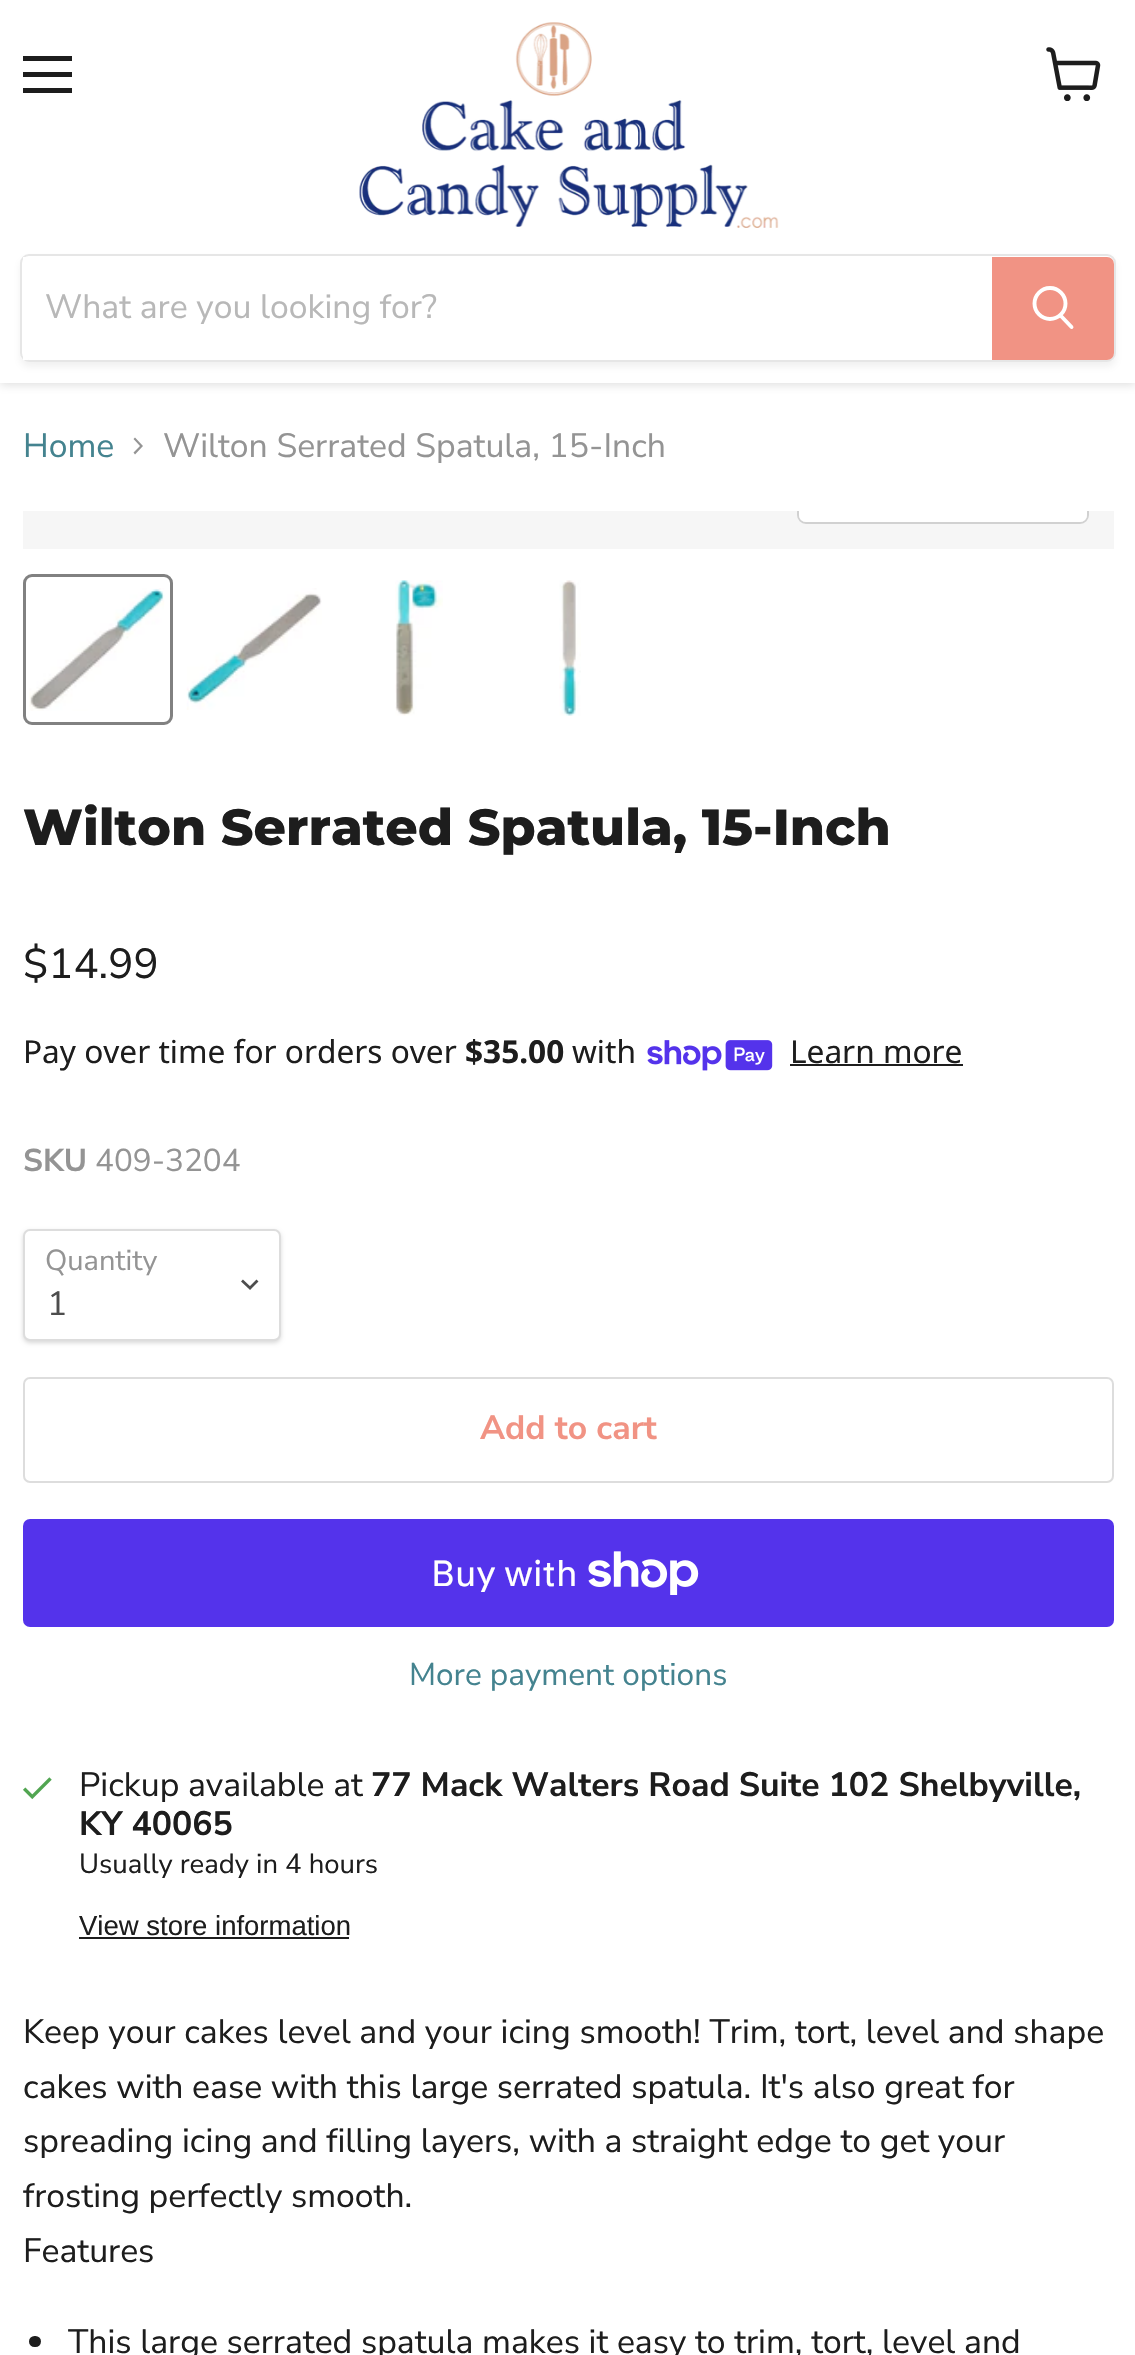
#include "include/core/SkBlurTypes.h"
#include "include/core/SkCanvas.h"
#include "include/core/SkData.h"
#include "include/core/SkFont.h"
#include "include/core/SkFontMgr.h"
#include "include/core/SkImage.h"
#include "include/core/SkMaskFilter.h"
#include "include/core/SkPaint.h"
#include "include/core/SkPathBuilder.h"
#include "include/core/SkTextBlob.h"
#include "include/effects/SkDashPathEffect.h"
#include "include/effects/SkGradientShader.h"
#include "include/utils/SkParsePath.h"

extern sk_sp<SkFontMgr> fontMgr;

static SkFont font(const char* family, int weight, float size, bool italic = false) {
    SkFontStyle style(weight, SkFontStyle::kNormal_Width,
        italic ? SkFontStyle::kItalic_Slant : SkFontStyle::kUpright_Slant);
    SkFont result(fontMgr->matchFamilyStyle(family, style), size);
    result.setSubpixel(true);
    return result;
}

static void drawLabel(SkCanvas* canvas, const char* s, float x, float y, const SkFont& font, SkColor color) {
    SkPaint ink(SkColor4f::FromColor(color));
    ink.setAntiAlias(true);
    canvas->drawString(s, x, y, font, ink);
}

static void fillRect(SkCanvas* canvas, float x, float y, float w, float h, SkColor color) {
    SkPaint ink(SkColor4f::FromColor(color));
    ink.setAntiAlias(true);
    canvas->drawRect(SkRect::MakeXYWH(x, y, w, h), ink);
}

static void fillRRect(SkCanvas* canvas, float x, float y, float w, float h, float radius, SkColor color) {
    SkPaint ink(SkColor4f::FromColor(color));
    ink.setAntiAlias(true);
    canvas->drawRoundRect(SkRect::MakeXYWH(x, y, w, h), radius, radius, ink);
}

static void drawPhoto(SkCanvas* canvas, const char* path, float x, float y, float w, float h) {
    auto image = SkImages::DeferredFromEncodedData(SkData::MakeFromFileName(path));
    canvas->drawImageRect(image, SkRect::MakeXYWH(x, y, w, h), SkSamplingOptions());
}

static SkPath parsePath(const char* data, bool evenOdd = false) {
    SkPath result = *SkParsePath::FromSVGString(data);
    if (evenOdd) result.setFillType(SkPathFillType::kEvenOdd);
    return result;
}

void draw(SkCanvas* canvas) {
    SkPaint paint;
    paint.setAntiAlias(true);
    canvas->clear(0xFFFFFFFF);
    paint.setColor(0x40808080);
    paint.setMaskFilter(SkMaskFilter::MakeBlur(kNormal_SkBlurStyle, 4.5f));
    canvas->drawRect(SkRect::MakeXYWH(0, 2, 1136, 383), paint);
    paint.setMaskFilter(nullptr);
    fillRect(canvas, 0, 0, 1135, 383, 0xFFFFFFFF);
    fillRect(canvas, 23, 56, 49, 5, 0xFF1D1D1D);
    fillRect(canvas, 23, 72, 49, 5, 0xFF1D1D1D);
    fillRect(canvas, 23, 88, 49, 5, 0xFF1D1D1D);
    drawPhoto(canvas, "assets/img1.png", 1046, 47, 55, 54);
    drawPhoto(canvas, "assets/img2.png", 359, 22, 420, 206);
    canvas->save();
    canvas->clipPath(parsePath("M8 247H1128V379H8ZM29 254H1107C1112 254 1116 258 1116 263V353C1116 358 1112 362 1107 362H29C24 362 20 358 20 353V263C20 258 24 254 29 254Z", true), true);
    paint.setColor(0x1C808080);
    paint.setMaskFilter(SkMaskFilter::MakeBlur(kNormal_SkBlurStyle, 3.5f));
    canvas->drawRoundRect(SkRect::MakeXYWH(20, 259, 1096, 108), 9, 9, paint);
    paint.setMaskFilter(nullptr);
    canvas->restore();
    paint.setStroke(true);
    paint.setStrokeWidth(2);
    paint.setColor(0x33808080);
    canvas->drawRoundRect(SkRect::MakeXYWH(21, 255, 1094, 106), 8, 8, paint);
    fillRect(canvas, 23, 257, 5, 103, 0xFFFFFFFF);
    SkFont font1 = font("Nunito Sans", 400, 33.75f);
    drawLabel(canvas, "What are you looking for?", 45, 318, font1, 0xFFB8B8B8);
    paint.setStroke(false);
    paint.setColor(0xFFF19384);
    canvas->drawPath(parsePath("M993 258H1107C1110.5 258 1113 260.5 1113 264V353C1113 356.5 1110.5 359 1107 359H993Z"), paint);
    paint.setStroke(true);
    canvas->drawPath(parsePath("M993 258H1107C1110.5 258 1113 260.5 1113 264V353C1113 356.5 1110.5 359 1107 359H993Z"), paint);
    paint.setStrokeWidth(3.9f);
    paint.setStrokeCap(SkPaint::kRound_Cap);
    paint.setColor(0xFFFFFFFF);
    canvas->drawPath(parsePath("M1071.5 327L1061 316"), paint);
    paint.setStrokeCap(SkPaint::kButt_Cap);
    canvas->drawCircle(1050, 303.5f, 15.5f, paint);
    drawLabel(canvas, "Home", 23, 457, font1, 0xFF44838F);
    paint.setStroke(false);
    paint.setColor(0xFF949494);
    canvas->drawPath(parsePath("M133.5 452.5L135 454.5L143 446L135 437.5L133.5 439L140 446Z", true), paint);
    drawLabel(canvas, "Wilton Serrated Spatula, 15-Inch", 163, 457, font1, 0xFF949494);
    fillRect(canvas, 23, 511, 1091, 38, 0xFFF6F6F6);
    canvas->save();
    canvas->clipRect(SkRect::MakeXYWH(23, 511, 1091, 38));
    paint.setStroke(true);
    paint.setStrokeWidth(2);
    paint.setColor(0xFFD1D1D1);
    canvas->drawRoundRect(SkRect::MakeXYWH(798, 460, 290, 63), 8, 8, paint);
    canvas->restore();
    paint.setStroke(false);
    paint.setColor(0xE6FFFFFF);
    canvas->drawPath(parsePath("M799 511H1087V515C1087 519 1084 522 1080 522H806C802 522 799 519 799 515Z"), paint);
    paint.setStroke(true);
    paint.setStrokeWidth(3);
    paint.setColor(0xFF818181);
    canvas->drawRoundRect(SkRect::MakeXYWH(24.5f, 575.5f, 147, 148), 7.5f, 7.5f, paint);
    drawPhoto(canvas, "assets/img3.png", 29, 588, 136, 123);
    drawPhoto(canvas, "assets/img4.png", 186, 588, 136, 122);
    drawPhoto(canvas, "assets/img5.png", 395, 580, 48, 136);
    drawPhoto(canvas, "assets/img6.png", 559, 580, 22, 136);
    SkFont font2 = font("Montserrat", 800, 50.6f);
    drawLabel(canvas, "Wilton Serrated Spatula, 15-Inch", 23, 845, font2, 0xFF1D1D1D);
    SkFont font3 = font("Nunito Sans", 400, 42);
    drawLabel(canvas, "$14.99", 23, 978, font3, 0xFF1D1D1D);
    SkFont font4 = font("Noto Sans", 400, 31.6f);
    drawLabel(canvas, "Pay over time for orders over", 23, 1063, font4, 0xFF1D1D1D);
    SkFont font5 = font("Noto Sans", 700, 31.6f);
    drawLabel(canvas, "$35.00", 465, 1063, font5, 0xFF1D1D1D);
    drawLabel(canvas, "with", 572, 1063, font4, 0xFF1D1D1D);
    drawPhoto(canvas, "assets/img7.png", 647, 1040, 126, 31);
    drawLabel(canvas, "Learn more", 790, 1063, font4, 0xFF1D1D1D);
    fillRect(canvas, 790, 1064, 173, 2, 0xFF1D1D1D);
    SkFont font6 = font("Nunito Sans", 700, 31.5f);
    drawLabel(canvas, "SKU", 23, 1171, font6, 0xFF949494);
    SkFont font7 = font("Nunito Sans", 400, 31.5f);
    drawLabel(canvas, "409-3204", 95, 1171, font7, 0xFF949494);
    paint.setStroke(false);
    paint.setColor(0x26000000);
    paint.setMaskFilter(SkMaskFilter::MakeBlur(kNormal_SkBlurStyle, 2));
    canvas->drawRoundRect(SkRect::MakeXYWH(23, 1231, 258, 112), 7, 7, paint);
    paint.setMaskFilter(nullptr);
    paint.setColor(0xFFFFFFFF);
    canvas->drawRoundRect(SkRect::MakeXYWH(24, 1230, 256, 110), 6, 6, paint);
    paint.setStroke(true);
    paint.setStrokeWidth(2);
    paint.setColor(0xFFDDDDDD);
    canvas->drawRoundRect(SkRect::MakeXYWH(24, 1230, 256, 110), 6, 6, paint);
    SkFont font8 = font("Nunito Sans", 400, 29);
    drawLabel(canvas, "Quantity", 45, 1270, font8, 0xFF949494);
    paint.setStrokeWidth(2.8f);
    paint.setStrokeCap(SkPaint::kSquare_Cap);
    paint.setColor(0xFF4D4D4D);
    canvas->drawPath(parsePath("M250 1288L256.5 1281.5M250 1288L243 1281.5"), paint);
    drawLabel(canvas, "1", 47, 1315, font1, 0xFF4D4D4D);
    paint.setStrokeWidth(2);
    paint.setStrokeCap(SkPaint::kButt_Cap);
    paint.setColor(0xFFDDDDDD);
    canvas->drawRoundRect(SkRect::MakeXYWH(24, 1378, 1089, 104), 6, 6, paint);
    SkFont font9 = font("Nunito Sans", 700, 33.75f);
    drawLabel(canvas, "Add to cart", 480, 1439, font9, 0xFFF19384);
    fillRRect(canvas, 23, 1519, 1091, 108, 7, 0xFF5433EB);
    SkFont font10 = font("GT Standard", 400, 36);
    drawLabel(canvas, "Buy with", 431, 1586, font10, 0xFFFFFFFF);
    drawPhoto(canvas, "assets/img8.png", 588, 1551, 111, 44);
    SkFont font11 = font("Nunito Sans", 400, 31.6f);
    drawLabel(canvas, "More payment options", 409, 1685, font11, 0xFF44838F);
    drawPhoto(canvas, "assets/img9.png", 23, 1777, 29, 23);
    drawLabel(canvas, "Pickup available at", 79, 1796, font1, 0xFF1D1D1D);
    drawLabel(canvas, "77 Mack Walters Road Suite 102 Shelbyville,", 371, 1796, font9, 0xFF1D1D1D);
    drawLabel(canvas, "KY 40065", 79, 1835, font9, 0xFF1D1D1D);
    SkFont font12 = font("Nunito Sans", 400, 27.5f);
    drawLabel(canvas, "Usually ready in 4 hours", 79, 1873, font12, 0xFF1D1D1D);
    SkFont font13 = font("Liberation Sans", 400, 27.5f);
    drawLabel(canvas, "View store information", 79, 1935, font13, 0xFF1D1D1D);
    fillRect(canvas, 79, 1937, 270, 2, 0xFF1D1D1D);
    drawLabel(canvas, "Keep your cakes level and your icing smooth! Trim, tort, level and shape", 23, 2043, font1, 0xFF1D1D1D);
    drawLabel(canvas, "cakes with ease with this large serrated spatula. It's also great for", 23, 2098, font1, 0xFF1D1D1D);
    drawLabel(canvas, "spreading icing and filling layers, with a straight edge to get your", 23, 2152, font1, 0xFF1D1D1D);
    drawLabel(canvas, "frosting perfectly smooth.", 23, 2207, font1, 0xFF1D1D1D);
    drawLabel(canvas, "Features", 23, 2262, font1, 0xFF1D1D1D);
    fillRRect(canvas, 29, 2336, 12, 11, 5.5f, 0xFF1D1D1D);
    drawLabel(canvas, "This large serrated spatula makes it easy to trim, tort, level and", 68, 2353, font1, 0xFF1D1D1D);
}
